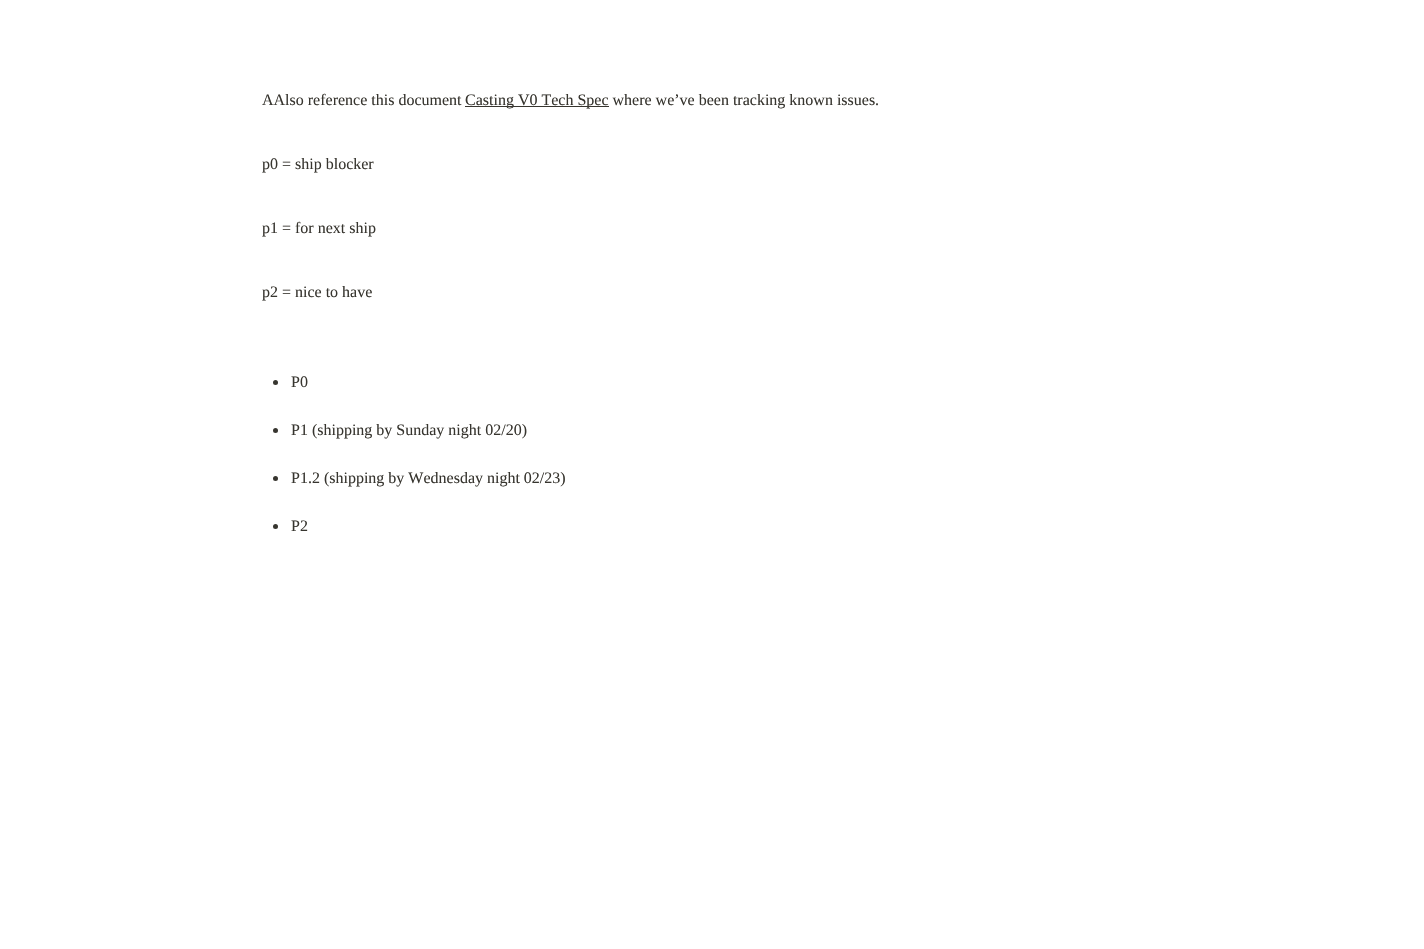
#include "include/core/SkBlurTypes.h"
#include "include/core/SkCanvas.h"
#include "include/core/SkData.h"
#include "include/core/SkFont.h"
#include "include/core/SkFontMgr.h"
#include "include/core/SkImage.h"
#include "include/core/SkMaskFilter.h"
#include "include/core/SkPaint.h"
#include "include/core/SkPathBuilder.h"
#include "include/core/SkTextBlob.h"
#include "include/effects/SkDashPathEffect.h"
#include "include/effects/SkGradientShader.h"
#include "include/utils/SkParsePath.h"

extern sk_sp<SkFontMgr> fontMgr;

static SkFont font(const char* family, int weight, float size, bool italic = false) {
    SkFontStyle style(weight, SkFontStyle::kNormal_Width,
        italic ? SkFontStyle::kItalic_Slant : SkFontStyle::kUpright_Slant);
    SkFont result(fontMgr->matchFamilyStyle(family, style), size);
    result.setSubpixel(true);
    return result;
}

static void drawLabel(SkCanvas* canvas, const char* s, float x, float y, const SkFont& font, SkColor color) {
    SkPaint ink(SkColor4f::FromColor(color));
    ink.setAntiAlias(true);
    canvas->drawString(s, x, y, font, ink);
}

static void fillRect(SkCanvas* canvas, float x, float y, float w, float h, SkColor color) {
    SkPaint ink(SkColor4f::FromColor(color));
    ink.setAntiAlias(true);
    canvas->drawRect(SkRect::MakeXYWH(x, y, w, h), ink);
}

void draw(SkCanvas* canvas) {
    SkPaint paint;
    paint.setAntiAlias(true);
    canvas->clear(0xFFFFFFFF);
    SkFont font1 = font("Liberation Serif", 400, 16);
    drawLabel(canvas, "AAlso reference this document", 262, 105, font1, 0xFF37352F);
    fillRect(canvas, 465, 106, 144, 1, 0xFF37352F);
    drawLabel(canvas, "Casting V0 Tech Spec where we’ve been tracking known issues.", 465, 105, font1, 0xFF37352F);
    drawLabel(canvas, "p0 = ship blocker", 262, 169, font1, 0xFF37352F);
    drawLabel(canvas, "p1 = for next ship", 262, 233, font1, 0xFF37352F);
    drawLabel(canvas, "p2 = nice to have", 262, 297, font1, 0xFF37352F);
    paint.setColor(0xFF37352F);
    canvas->drawCircle(275.5f, 382.5f, 2.5f, paint);
    drawLabel(canvas, "P0", 291, 387, font1, 0xFF37352F);
    canvas->drawCircle(275.5f, 430.5f, 2.5f, paint);
    drawLabel(canvas, "P1 (shipping by Sunday night 02/20)", 291, 435, font1, 0xFF37352F);
    canvas->drawCircle(275.5f, 478.5f, 2.5f, paint);
    drawLabel(canvas, "P1.2 (shipping by Wednesday night 02/23)", 291, 483, font1, 0xFF37352F);
    canvas->drawCircle(275.5f, 526.5f, 2.5f, paint);
    drawLabel(canvas, "P2", 291, 531, font1, 0xFF37352F);
}
